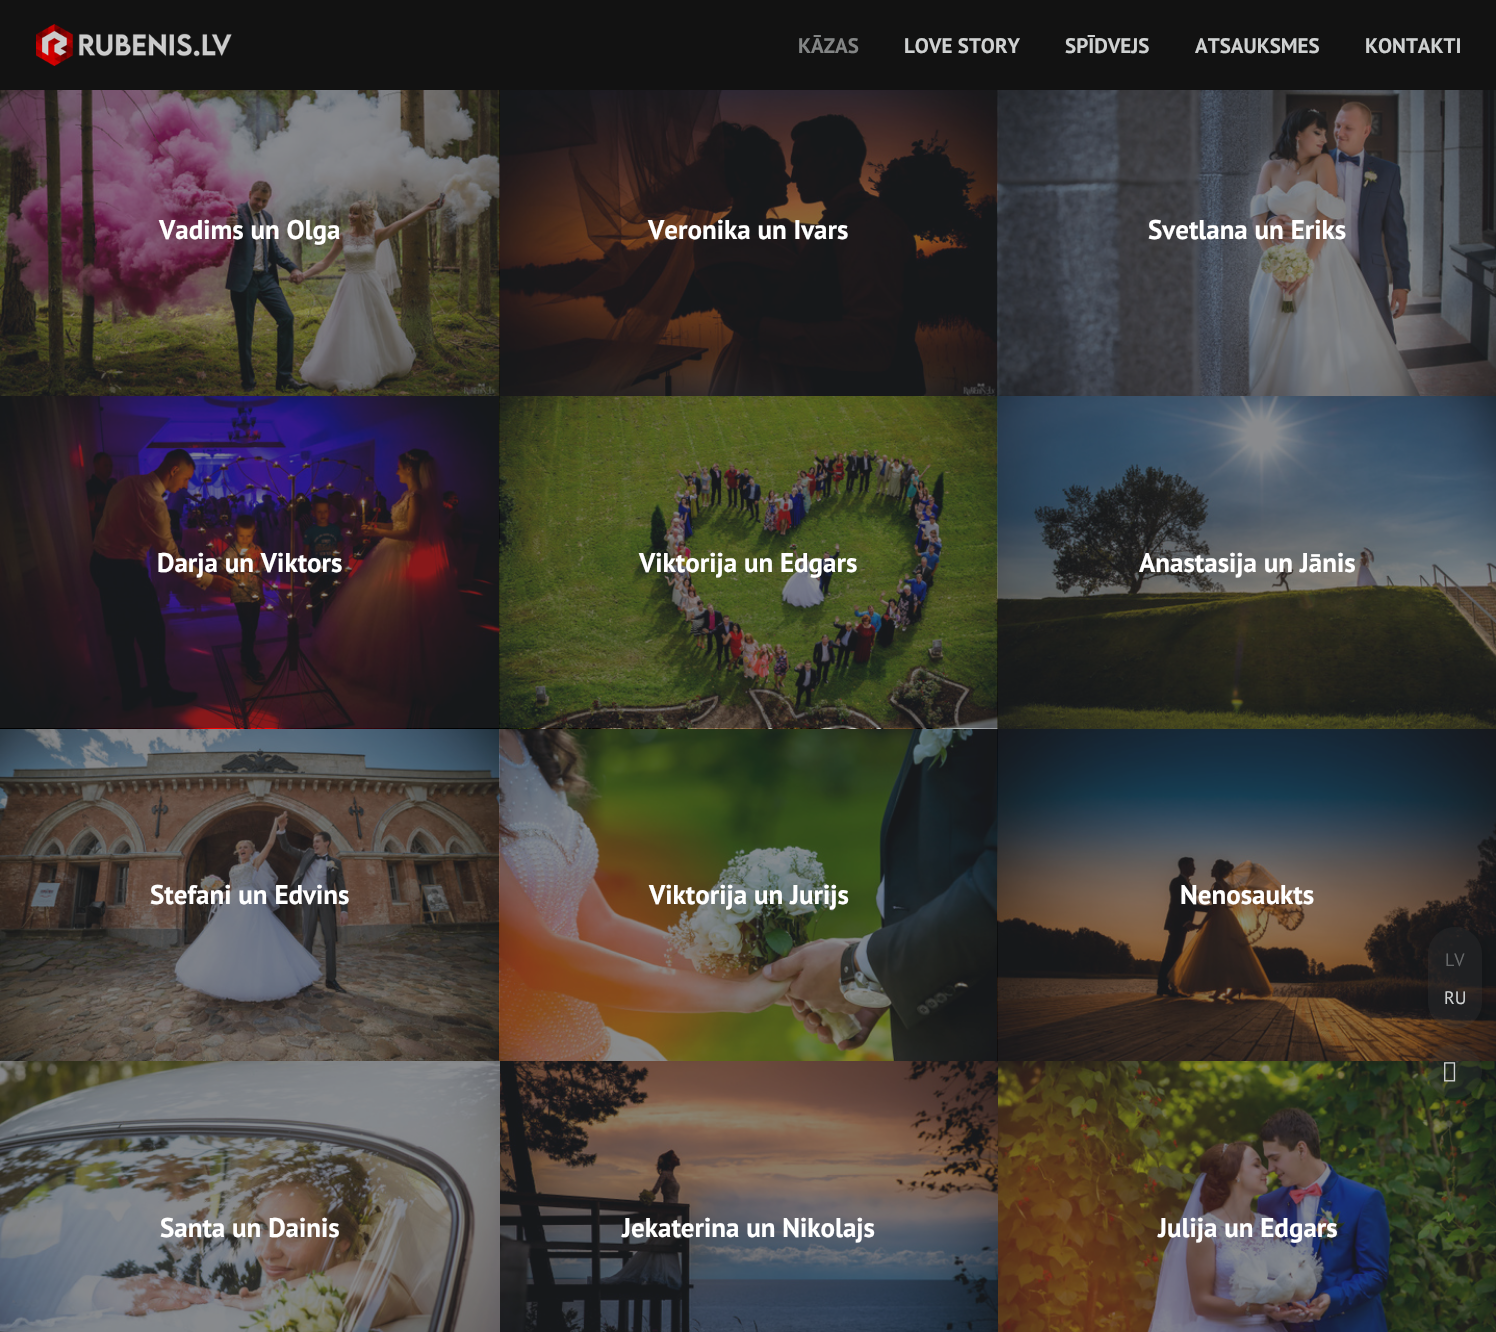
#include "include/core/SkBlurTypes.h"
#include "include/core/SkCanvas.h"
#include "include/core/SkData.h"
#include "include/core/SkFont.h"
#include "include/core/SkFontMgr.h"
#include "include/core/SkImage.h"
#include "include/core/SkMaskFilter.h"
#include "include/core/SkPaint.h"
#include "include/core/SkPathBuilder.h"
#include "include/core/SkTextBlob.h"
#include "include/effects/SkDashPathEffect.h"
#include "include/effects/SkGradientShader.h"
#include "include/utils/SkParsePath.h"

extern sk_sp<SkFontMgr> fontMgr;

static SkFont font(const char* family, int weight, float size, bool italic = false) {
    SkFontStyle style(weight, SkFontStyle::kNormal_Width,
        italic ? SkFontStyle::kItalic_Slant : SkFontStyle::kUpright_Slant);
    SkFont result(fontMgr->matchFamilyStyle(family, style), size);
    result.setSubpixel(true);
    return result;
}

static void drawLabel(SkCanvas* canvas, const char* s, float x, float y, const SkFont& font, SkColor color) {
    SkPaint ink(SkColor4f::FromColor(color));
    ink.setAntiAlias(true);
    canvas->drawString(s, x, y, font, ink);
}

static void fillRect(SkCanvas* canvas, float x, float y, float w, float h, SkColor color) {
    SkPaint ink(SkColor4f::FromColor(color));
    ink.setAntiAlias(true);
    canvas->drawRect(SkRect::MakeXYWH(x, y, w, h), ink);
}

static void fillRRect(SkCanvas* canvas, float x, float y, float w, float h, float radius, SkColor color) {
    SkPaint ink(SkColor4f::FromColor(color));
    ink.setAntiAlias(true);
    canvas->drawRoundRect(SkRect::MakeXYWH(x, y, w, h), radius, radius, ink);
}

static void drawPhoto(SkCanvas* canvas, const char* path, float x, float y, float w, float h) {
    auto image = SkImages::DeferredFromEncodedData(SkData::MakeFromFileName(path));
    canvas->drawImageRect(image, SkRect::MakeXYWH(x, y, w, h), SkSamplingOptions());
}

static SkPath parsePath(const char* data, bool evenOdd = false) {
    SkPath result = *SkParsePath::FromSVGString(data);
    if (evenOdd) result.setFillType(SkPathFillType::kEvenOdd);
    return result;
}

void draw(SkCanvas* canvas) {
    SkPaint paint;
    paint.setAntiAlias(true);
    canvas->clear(0xFFFFFFFF);
    fillRect(canvas, 0, 0, 1496, 90, 0xFF121212);
    drawPhoto(canvas, "assets/img1.png", 36, 24, 196, 42);
    SkFont font1 = font("PT Sans", 700, 21);
    drawLabel(canvas, "KĀZAS", 798, 53, font1, 0xFF838585);
    drawLabel(canvas, "LOVE STORY", 904, 53, font1, 0xFFCFD1D1);
    drawLabel(canvas, "SPĪDVEJS", 1065, 53, font1, 0xFFCFD1D1);
    drawLabel(canvas, "ATSAUKSMES", 1195, 53, font1, 0xFFCFD1D1);
    drawLabel(canvas, "KONTAKTI", 1365, 53, font1, 0xFFCFD1D1);
    drawPhoto(canvas, "assets/img2.png", 0, 90, 500, 306);
    SkFont font2 = font("PT Sans", 700, 27);
    drawLabel(canvas, "Vadims un Olga", 159, 239, font2, 0xFFFFFFFF);
    drawPhoto(canvas, "assets/img3.png", 499, 90, 499, 306);
    drawLabel(canvas, "Veronika un Ivars", 648, 239, font2, 0xFFFFFFFF);
    drawPhoto(canvas, "assets/img4.png", 997, 90, 499, 306);
    drawLabel(canvas, "Svetlana un Eriks", 1148, 239, font2, 0xFFFFFFFF);
    drawPhoto(canvas, "assets/img5.png", 0, 396, 500, 333);
    drawLabel(canvas, "Darja un Viktors", 157, 572, font2, 0xFFFFFFFF);
    drawPhoto(canvas, "assets/img6.png", 499, 396, 499, 333);
    drawLabel(canvas, "Viktorija un Edgars", 639, 572, font2, 0xFFFFFFFF);
    drawPhoto(canvas, "assets/img7.png", 997, 396, 499, 333);
    drawLabel(canvas, "Anastasija un Jānis", 1139, 572, font2, 0xFFFFFFFF);
    drawPhoto(canvas, "assets/img8.png", 0, 729, 500, 332);
    drawLabel(canvas, "Stefani un Edvins", 150, 904, font2, 0xFFFFFFFF);
    drawPhoto(canvas, "assets/img9.png", 499, 729, 499, 332);
    drawLabel(canvas, "Viktorija un Jurijs", 649, 904, font2, 0xFFFFFFFF);
    drawPhoto(canvas, "assets/img10.png", 997, 729, 499, 332);
    drawLabel(canvas, "Nenosaukts", 1180, 904, font2, 0xFFFFFFFF);
    drawPhoto(canvas, "assets/img11.png", 0, 1061, 500, 271);
    drawLabel(canvas, "Santa un Dainis", 160, 1237, font2, 0xFFFFFFFF);
    drawPhoto(canvas, "assets/img12.png", 500, 1061, 498, 271);
    drawLabel(canvas, "Jekaterina un Nikolajs", 622, 1237, font2, 0xFFFFFFFF);
    drawPhoto(canvas, "assets/img13.png", 998, 1061, 498, 271);
    drawLabel(canvas, "Julija un Edgars", 1158, 1237, font2, 0xFFFFFFFF);
    canvas->save();
    canvas->clipPath(parsePath("M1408 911H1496V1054H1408ZM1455 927C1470 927 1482 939 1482 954V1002C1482 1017 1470 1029 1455 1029C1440 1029 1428 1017 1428 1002V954C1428 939 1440 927 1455 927Z", true), true);
    paint.setColor(0x26000000);
    paint.setMaskFilter(SkMaskFilter::MakeBlur(kNormal_SkBlurStyle, 6));
    canvas->drawRoundRect(SkRect::MakeXYWH(1427, 930, 57, 105), 28.5f, 28.5f, paint);
    paint.setMaskFilter(nullptr);
    canvas->restore();
    fillRRect(canvas, 1428, 927, 54, 102, 27, 0x4D333333);
    SkFont font3 = font("PT Sans", 400, 18);
    drawLabel(canvas, "LV", 1445, 966, font3, 0xFF656768);
    drawLabel(canvas, "RU", 1444, 1004, font3, 0xFFCFD1D1);
    canvas->save();
    canvas->clipPath(parsePath("M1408 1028H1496V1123H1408ZM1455 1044C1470 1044 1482 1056 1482 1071C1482 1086 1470 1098 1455 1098C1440 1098 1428 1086 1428 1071C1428 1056 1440 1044 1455 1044Z", true), true);
    paint.setMaskFilter(SkMaskFilter::MakeBlur(kNormal_SkBlurStyle, 6));
    canvas->drawRoundRect(SkRect::MakeXYWH(1427, 1047, 57, 57), 28.5f, 28.5f, paint);
    paint.setMaskFilter(nullptr);
    canvas->restore();
    paint.setColor(0x4D333333);
    canvas->drawCircle(1455, 1071, 27, paint);
    drawPhoto(canvas, "assets/img14.png", 1444, 1062, 12, 20);
}
